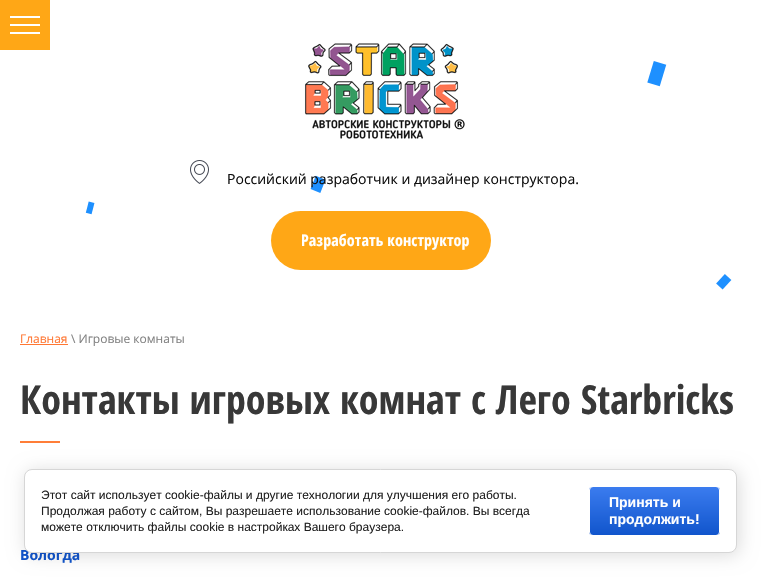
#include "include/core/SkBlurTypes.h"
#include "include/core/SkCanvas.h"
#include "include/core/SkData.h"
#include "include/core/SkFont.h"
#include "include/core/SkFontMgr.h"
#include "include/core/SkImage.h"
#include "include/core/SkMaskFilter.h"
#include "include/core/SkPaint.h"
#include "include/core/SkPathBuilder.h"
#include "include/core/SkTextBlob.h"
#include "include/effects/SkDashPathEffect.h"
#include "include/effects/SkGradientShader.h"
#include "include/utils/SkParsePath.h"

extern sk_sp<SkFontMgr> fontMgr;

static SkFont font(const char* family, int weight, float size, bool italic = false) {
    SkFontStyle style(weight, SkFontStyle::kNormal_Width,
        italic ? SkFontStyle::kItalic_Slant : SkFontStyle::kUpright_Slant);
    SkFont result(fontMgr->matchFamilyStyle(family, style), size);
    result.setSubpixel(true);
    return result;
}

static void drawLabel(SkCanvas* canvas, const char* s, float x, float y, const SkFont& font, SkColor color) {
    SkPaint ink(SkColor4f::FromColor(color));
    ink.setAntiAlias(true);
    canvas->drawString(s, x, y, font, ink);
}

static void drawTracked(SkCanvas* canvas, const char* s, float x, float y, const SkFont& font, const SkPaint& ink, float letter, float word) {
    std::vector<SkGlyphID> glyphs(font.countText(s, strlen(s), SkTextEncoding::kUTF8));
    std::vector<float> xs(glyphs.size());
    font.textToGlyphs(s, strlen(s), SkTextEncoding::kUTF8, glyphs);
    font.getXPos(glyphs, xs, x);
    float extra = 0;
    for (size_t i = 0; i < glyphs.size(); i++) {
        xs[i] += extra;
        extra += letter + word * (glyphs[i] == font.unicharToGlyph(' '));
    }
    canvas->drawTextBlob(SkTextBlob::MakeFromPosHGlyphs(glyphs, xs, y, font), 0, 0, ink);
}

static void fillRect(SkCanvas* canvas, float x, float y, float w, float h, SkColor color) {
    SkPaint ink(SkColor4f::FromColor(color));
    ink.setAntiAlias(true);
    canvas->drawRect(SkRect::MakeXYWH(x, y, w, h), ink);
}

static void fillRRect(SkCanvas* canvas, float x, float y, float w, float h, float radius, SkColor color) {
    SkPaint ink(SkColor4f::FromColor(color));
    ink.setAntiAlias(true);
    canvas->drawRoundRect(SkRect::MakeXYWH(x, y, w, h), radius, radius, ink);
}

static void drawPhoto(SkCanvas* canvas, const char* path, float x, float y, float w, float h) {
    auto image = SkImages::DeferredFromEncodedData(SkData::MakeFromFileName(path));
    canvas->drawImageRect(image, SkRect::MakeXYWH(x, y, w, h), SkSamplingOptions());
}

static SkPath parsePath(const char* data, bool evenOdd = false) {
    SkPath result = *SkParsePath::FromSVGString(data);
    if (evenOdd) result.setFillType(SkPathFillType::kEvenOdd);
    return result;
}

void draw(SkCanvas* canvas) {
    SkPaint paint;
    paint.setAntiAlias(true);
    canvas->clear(0xFFFFFFFF);
    drawPhoto(canvas, "assets/img1.png", 85, 61, 647, 229);
    fillRect(canvas, 0, 0, 50, 50, 0xFFFFA716);
    fillRect(canvas, 10, 16, 30, 2, 0xFFFFFFFF);
    fillRect(canvas, 10, 24, 30, 2, 0xFFFFFFFF);
    fillRect(canvas, 10, 32, 30, 2, 0xFFFFFFFF);
    drawPhoto(canvas, "assets/img2.png", 304, 43, 161, 96);
    drawPhoto(canvas, "assets/img3.png", 190, 160, 19, 24);
    SkFont font1 = font("Open Sans", 400, 14);
    drawLabel(canvas, "Российский разработчик и дизайнер конструктора.", 227, 184, font1, 0xFF0D0D0D);
    fillRRect(canvas, 271, 211, 220, 59, 29.5f, 0xFFFFA716);
    SkFont font2 = font("Open Sans Condensed", 700, 16);
    paint.setColor(0xFFFFFFFF);
    drawTracked(canvas, "Разработать конструктор", 301, 246, font2, paint, 0.1f, 0);
    SkFont font3 = font("Open Sans", 400, 12);
    drawLabel(canvas, "Главная", 20, 343, font3, 0xFFFF7733);
    fillRect(canvas, 20, 344, 48, 1, 0xFFFF7733);
    drawLabel(canvas, "\\ Игровые комнаты", 71, 343, font3, 0xFF828282);
    fillRect(canvas, 20, 441, 40, 2, 0xFFFF7E38);
    SkFont font4 = font("Open Sans Condensed", 700, 40);
    drawLabel(canvas, "Контакты игровых комнат с Лего Starbricks", 20, 414, font4, 0xFF383838);
    SkFont font5 = font("Open Sans", 700, 14);
    drawLabel(canvas, "Вологда", 20, 560, font5, 0xFF1155CC);
    paint.setColor(0x24000000);
    paint.setMaskFilter(SkMaskFilter::MakeBlur(kNormal_SkBlurStyle, 9));
    canvas->drawRoundRect(SkRect::MakeXYWH(26, 471, 713, 84), 8, 8, paint);
    paint.setMaskFilter(nullptr);
    paint.setColor(0xFFFFFFFF);
    canvas->drawRoundRect(SkRect::MakeXYWH(24.5f, 469.5f, 712, 83), 7.5f, 7.5f, paint);
    paint.setStroke(true);
    paint.setStrokeWidth(1);
    paint.setColor(0xFFD6D6D6);
    canvas->drawRoundRect(SkRect::MakeXYWH(24.5f, 469.5f, 712, 83), 7.5f, 7.5f, paint);
    SkFont font6 = font("Liberation Sans", 400, 12);
    drawLabel(canvas, "Этот сайт использует cookie-файлы и другие технологии для улучшения его работы.", 41, 499, font6, 0xFF212121);
    drawLabel(canvas, "Продолжая работу с сайтом, Вы разрешаете использование cookie-файлов. Вы всегда", 41, 515, font6, 0xFF212121);
    drawLabel(canvas, "можете отключить файлы cookie в настройках Вашего браузера.", 41, 531, font6, 0xFF212121);
    canvas->save();
    canvas->clipPath(parsePath("M593 486H716C718 486 720 488 720 490V532C720 534 718 536 716 536H593C591 536 589 534 589 532V490C589 488 591 486 593 486Z"), true);
    paint.setStroke(false);
    {
        const SkColor colors[] = {0xFF3B7CEF, 0xFF1155CC};
        const float stops[] = {0, 1};
        const SkPoint ends[] = {{655, 487}, {655, 535}};
        paint.setShader(SkGradientShader::MakeLinear(ends, colors, stops, 2, SkTileMode::kClamp));
        paint.setAlpha(255);
    }
    canvas->drawRect(SkRect::MakeXYWH(589, 487, 131, 48), paint);
    canvas->restore();
    paint.setStroke(true);
    paint.setShader(nullptr);
    paint.setColor(0xFFFFFFFF);
    canvas->drawRoundRect(SkRect::MakeXYWH(589.5f, 486.5f, 130, 49), 3.5f, 3.5f, paint);
    SkFont font7 = font("Liberation Sans", 700, 14);
    drawLabel(canvas, "Принять и", 609, 507, font7, 0xFFFFFFFF);
    drawLabel(canvas, "продолжить!", 609, 524, font7, 0xFFFFFFFF);
}
